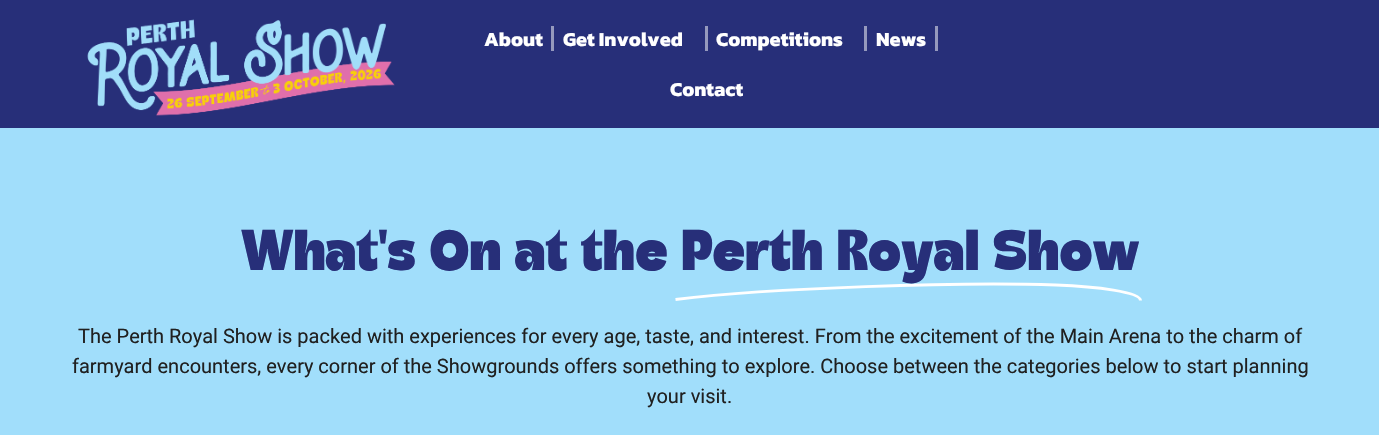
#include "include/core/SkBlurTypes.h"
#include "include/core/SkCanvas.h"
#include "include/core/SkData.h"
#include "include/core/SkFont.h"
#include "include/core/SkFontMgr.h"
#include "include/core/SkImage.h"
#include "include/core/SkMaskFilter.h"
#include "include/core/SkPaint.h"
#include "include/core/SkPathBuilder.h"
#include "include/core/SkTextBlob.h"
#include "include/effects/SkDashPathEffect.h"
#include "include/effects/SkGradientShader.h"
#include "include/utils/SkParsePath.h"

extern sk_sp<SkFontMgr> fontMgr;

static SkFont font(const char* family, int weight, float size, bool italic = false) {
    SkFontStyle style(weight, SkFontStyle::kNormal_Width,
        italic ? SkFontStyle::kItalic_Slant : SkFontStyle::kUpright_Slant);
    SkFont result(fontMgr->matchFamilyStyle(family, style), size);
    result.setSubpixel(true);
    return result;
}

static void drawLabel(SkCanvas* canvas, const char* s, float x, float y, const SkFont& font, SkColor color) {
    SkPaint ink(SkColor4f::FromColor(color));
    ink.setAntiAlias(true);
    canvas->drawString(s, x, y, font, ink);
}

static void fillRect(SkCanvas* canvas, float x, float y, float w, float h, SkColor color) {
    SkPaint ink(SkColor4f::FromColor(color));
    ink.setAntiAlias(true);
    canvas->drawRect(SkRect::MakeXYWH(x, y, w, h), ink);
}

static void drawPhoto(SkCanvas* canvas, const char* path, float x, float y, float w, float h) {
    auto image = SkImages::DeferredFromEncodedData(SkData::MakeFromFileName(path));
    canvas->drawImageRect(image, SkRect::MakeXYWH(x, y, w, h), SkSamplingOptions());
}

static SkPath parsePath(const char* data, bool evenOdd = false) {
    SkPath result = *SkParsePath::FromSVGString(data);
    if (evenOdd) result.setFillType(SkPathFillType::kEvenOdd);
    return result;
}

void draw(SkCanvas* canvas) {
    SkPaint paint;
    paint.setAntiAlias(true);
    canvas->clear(0xFFA1DEFB);
    fillRect(canvas, 0, 0, 1379, 128, 0xFF272F79);
    drawPhoto(canvas, "assets/img1.png", 87, 19, 308, 97);
    SkFont font1 = font("Kanit", 700, 20);
    drawLabel(canvas, "About", 484, 46, font1, 0xFFFFFFFF);
    fillRect(canvas, 551, 26, 3, 25, 0xFF9599BD);
    drawLabel(canvas, "Get Involved", 563, 46, font1, 0xFFFFFFFF);
    fillRect(canvas, 705, 26, 3, 25, 0xFF9599BD);
    drawLabel(canvas, "Competitions", 716, 46, font1, 0xFFFFFFFF);
    fillRect(canvas, 864, 26, 3, 25, 0xFF9599BD);
    drawLabel(canvas, "News", 876, 46, font1, 0xFFFFFFFF);
    fillRect(canvas, 935, 26, 3, 25, 0xFF9599BD);
    drawLabel(canvas, "Contact", 670, 96, font1, 0xFFFFFFFF);
    paint.setStroke(true);
    paint.setStrokeWidth(3);
    paint.setColor(0xFFFFFFFF);
    canvas->drawPath(parsePath("M675.5 299.5C773.5 287.5 958 282 1056 285C1096.5 286.5 1140.5 292 1140.5 300.5"), paint);
    SkFont font2 = font("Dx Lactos", 400, 53.75f);
    drawLabel(canvas, "What's On at the Perth Royal Show", 241, 270, font2, 0xFF272F79);
    SkFont font3 = font("Roboto", 400, 20);
    drawLabel(canvas, "The Perth Royal Show is packed with experiences for every age, taste, and interest. From the excitement of the Main Arena to the charm of", 78, 343, font3, 0xFF202020);
    drawLabel(canvas, "farmyard encounters, every corner of the Showgrounds offers something to explore. Choose between the categories below to start planning", 72, 373, font3, 0xFF202020);
    drawLabel(canvas, "your visit.", 647, 403, font3, 0xFF202020);
}
